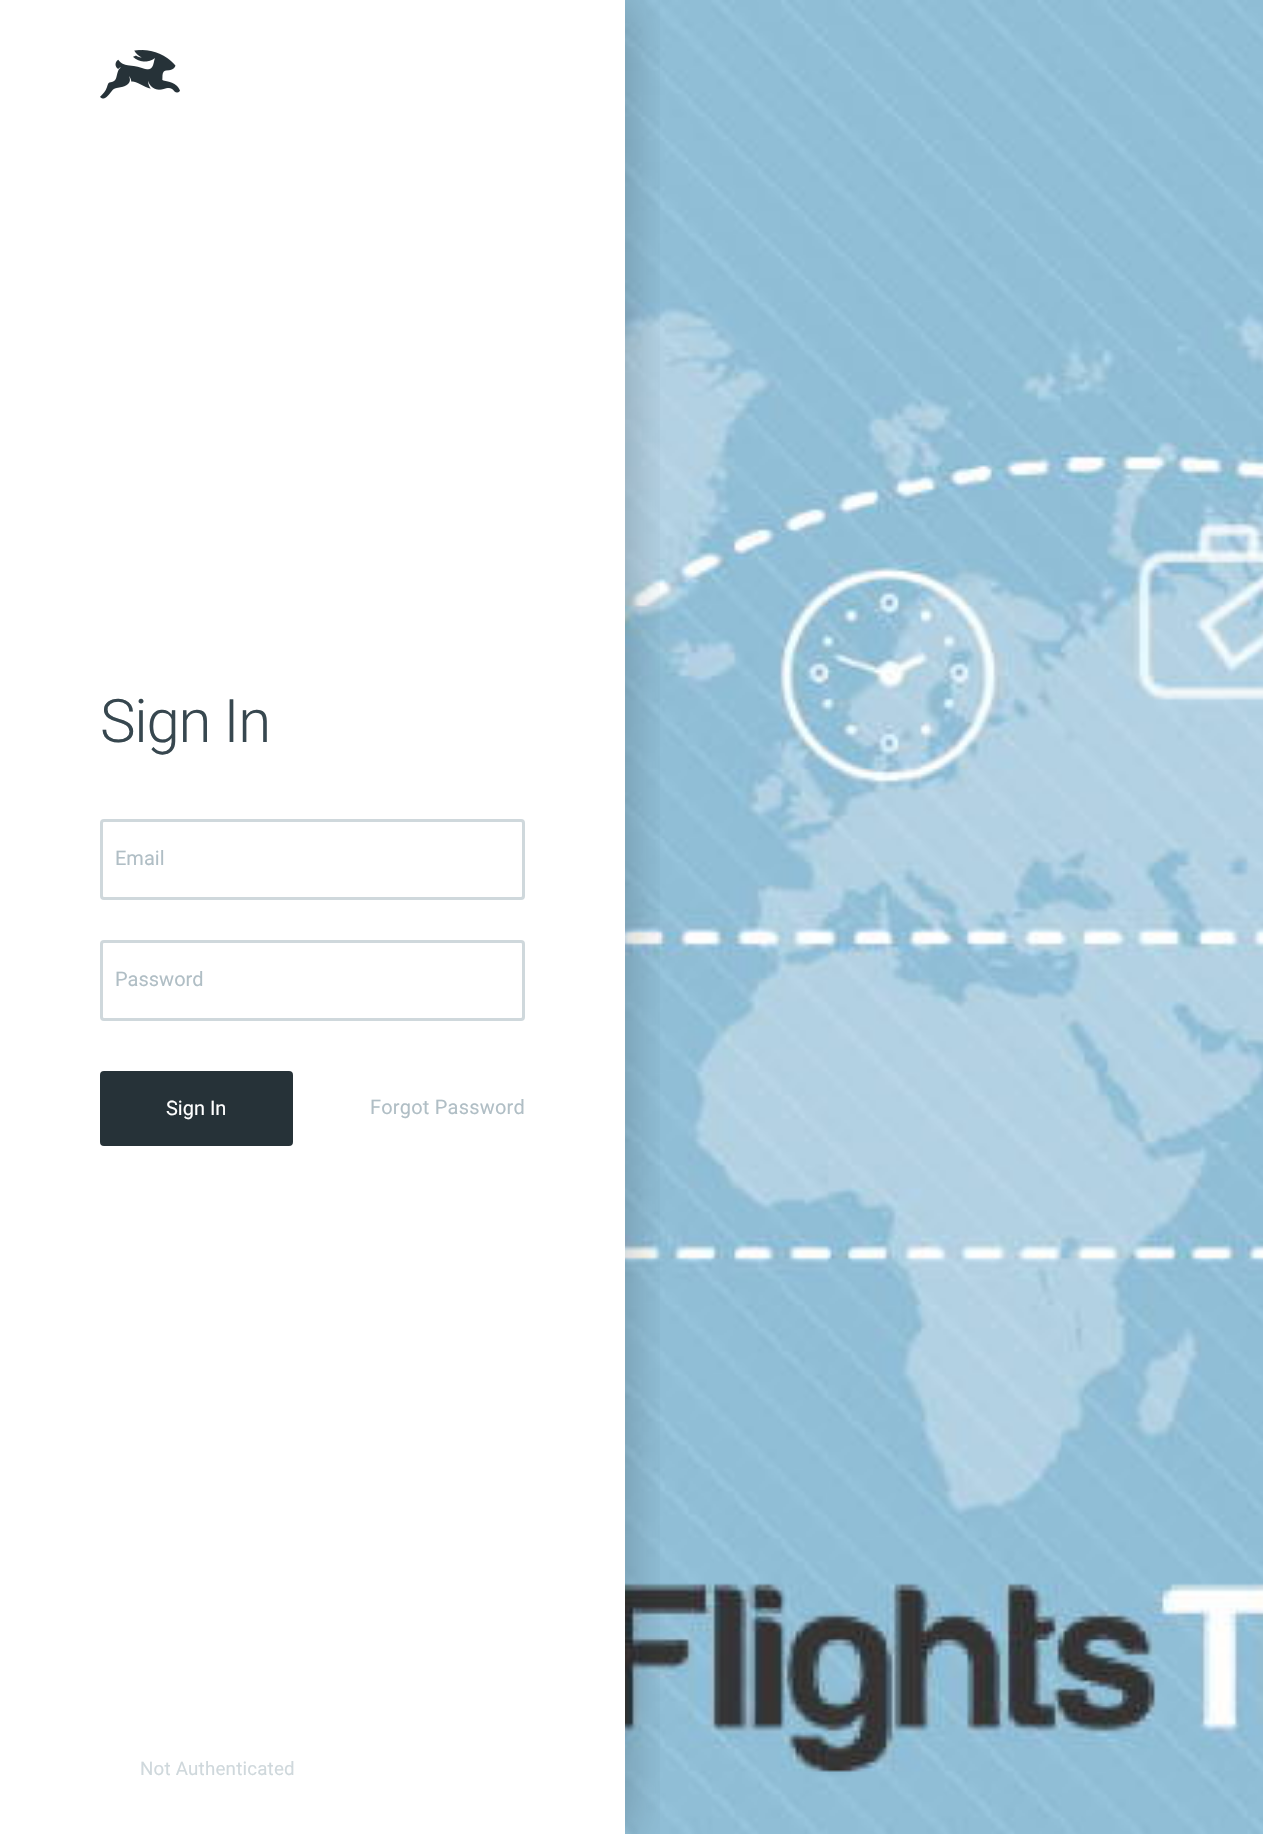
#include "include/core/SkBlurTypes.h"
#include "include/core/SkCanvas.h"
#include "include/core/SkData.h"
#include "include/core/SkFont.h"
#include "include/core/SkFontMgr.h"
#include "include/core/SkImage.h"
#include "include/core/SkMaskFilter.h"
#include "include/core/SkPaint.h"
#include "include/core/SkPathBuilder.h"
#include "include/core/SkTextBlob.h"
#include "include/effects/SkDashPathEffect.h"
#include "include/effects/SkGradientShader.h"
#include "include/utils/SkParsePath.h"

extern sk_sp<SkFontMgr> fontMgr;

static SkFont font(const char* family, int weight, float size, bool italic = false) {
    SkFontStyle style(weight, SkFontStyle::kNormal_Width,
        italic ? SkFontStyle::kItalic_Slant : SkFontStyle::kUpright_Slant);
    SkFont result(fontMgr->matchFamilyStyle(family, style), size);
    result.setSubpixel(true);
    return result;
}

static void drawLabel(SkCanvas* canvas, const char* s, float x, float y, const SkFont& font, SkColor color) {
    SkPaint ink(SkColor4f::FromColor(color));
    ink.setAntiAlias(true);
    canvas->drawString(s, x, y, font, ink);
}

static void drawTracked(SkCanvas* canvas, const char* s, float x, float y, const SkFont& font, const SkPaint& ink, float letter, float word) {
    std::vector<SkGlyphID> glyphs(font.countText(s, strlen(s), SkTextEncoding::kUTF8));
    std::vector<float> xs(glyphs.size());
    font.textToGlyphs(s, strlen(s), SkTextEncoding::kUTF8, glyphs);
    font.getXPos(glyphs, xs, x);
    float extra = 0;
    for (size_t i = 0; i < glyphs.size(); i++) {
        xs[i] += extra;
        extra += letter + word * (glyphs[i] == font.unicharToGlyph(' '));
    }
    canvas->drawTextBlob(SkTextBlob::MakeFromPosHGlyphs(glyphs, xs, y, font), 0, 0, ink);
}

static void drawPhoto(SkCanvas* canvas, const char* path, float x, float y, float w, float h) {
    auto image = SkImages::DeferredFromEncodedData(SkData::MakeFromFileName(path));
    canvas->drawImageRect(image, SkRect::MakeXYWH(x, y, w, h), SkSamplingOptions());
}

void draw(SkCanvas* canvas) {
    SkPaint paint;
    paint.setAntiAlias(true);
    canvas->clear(0xFFFFFFFF);
    drawPhoto(canvas, "assets/img2.png", 625, 0, 638, 1834);
    canvas->save();
    canvas->clipRect(SkRect::MakeXYWH(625, 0, 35, 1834));
    paint.setColor(0x40000000);
    paint.setMaskFilter(SkMaskFilter::MakeBlur(kNormal_SkBlurStyle, 25));
    canvas->drawRect(SkRect::MakeXYWH(0, 0, 625, 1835), paint);
    paint.setMaskFilter(nullptr);
    canvas->restore();
    drawPhoto(canvas, "assets/img1.png", 100, 50, 80, 49);
    SkFont font1 = font("Roboto", 300, 60);
    paint.setColor(0xFF37474F);
    drawTracked(canvas, "Sign In", 100, 742, font1, paint, -1.25f, 0);
    paint.setStroke(true);
    paint.setStrokeWidth(3);
    paint.setColor(0xFFCFD8DC);
    canvas->drawRoundRect(SkRect::MakeXYWH(101.5f, 820.5f, 422, 78), 2.5f, 2.5f, paint);
    SkFont font2 = font("Roboto", 400, 20);
    drawLabel(canvas, "Email", 115, 865, font2, 0xFFB0BEC5);
    canvas->drawRoundRect(SkRect::MakeXYWH(101.5f, 941.5f, 422, 78), 2.5f, 2.5f, paint);
    drawLabel(canvas, "Password", 115, 986, font2, 0xFFB0BEC5);
    paint.setStroke(false);
    paint.setColor(0xFF263238);
    canvas->drawRoundRect(SkRect::MakeXYWH(101.5f, 1072.5f, 190, 72), 2.5f, 2.5f, paint);
    paint.setStroke(true);
    canvas->drawRoundRect(SkRect::MakeXYWH(101.5f, 1072.5f, 190, 72), 2.5f, 2.5f, paint);
    drawLabel(canvas, "Sign In", 166, 1115, font2, 0xFFFFFFFF);
    paint.setStroke(false);
    paint.setColor(0xFFB0BEC5);
    drawTracked(canvas, "Forgot Password", 370, 1114, font2, paint, 0.2f, 0);
    SkFont font3 = font("Roboto", 400, 18.75f);
    paint.setColor(0xFFCFD8DC);
    drawTracked(canvas, "Not Authenticated", 140, 1775, font3, paint, 0.2f, 0);
}
